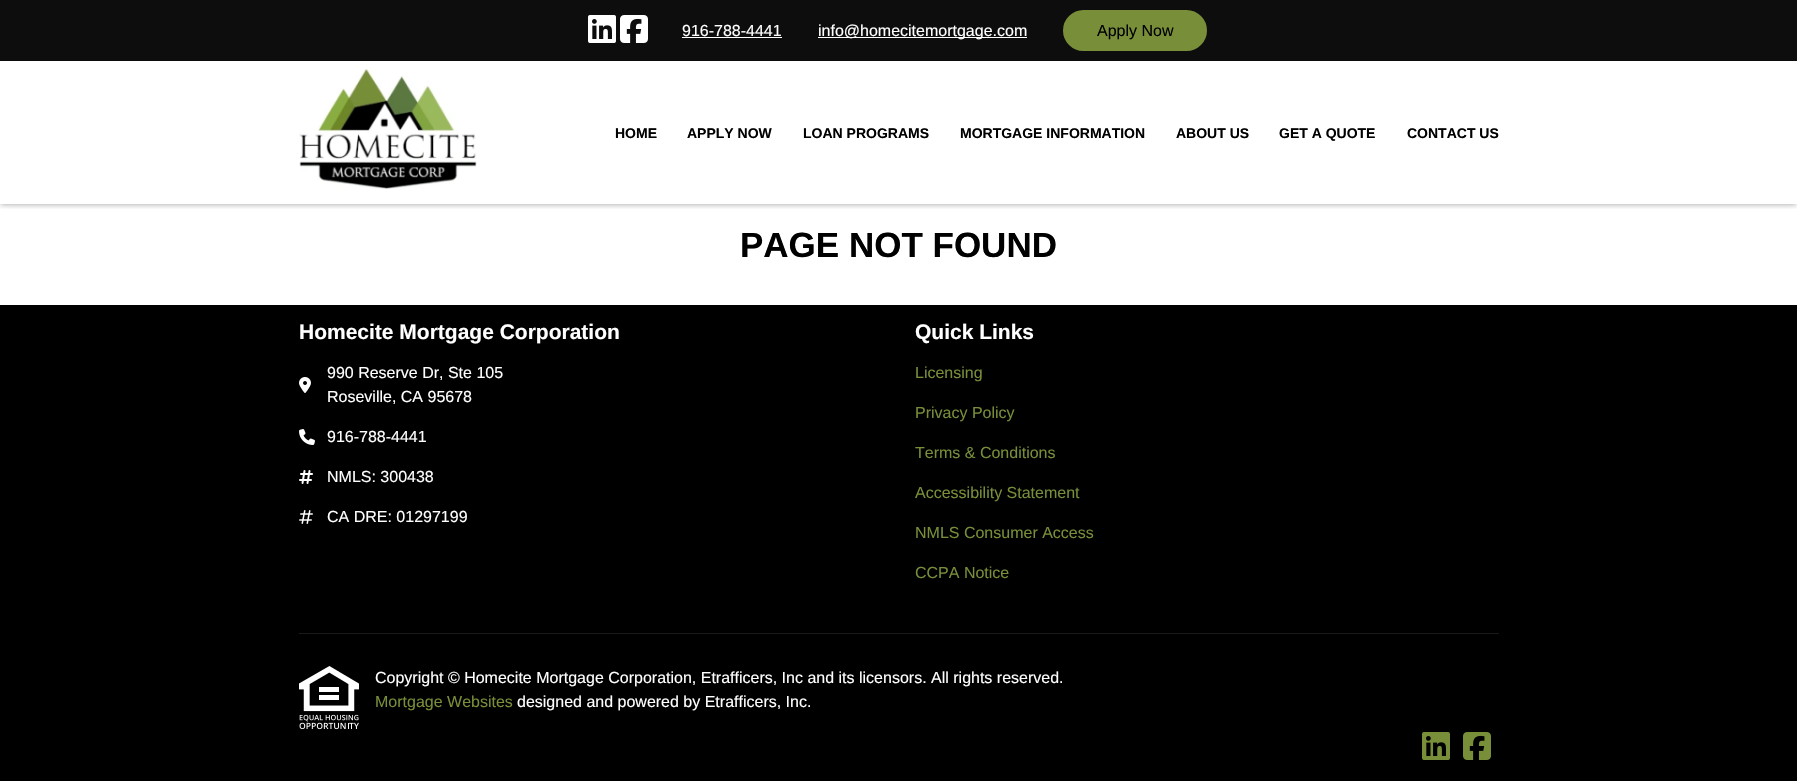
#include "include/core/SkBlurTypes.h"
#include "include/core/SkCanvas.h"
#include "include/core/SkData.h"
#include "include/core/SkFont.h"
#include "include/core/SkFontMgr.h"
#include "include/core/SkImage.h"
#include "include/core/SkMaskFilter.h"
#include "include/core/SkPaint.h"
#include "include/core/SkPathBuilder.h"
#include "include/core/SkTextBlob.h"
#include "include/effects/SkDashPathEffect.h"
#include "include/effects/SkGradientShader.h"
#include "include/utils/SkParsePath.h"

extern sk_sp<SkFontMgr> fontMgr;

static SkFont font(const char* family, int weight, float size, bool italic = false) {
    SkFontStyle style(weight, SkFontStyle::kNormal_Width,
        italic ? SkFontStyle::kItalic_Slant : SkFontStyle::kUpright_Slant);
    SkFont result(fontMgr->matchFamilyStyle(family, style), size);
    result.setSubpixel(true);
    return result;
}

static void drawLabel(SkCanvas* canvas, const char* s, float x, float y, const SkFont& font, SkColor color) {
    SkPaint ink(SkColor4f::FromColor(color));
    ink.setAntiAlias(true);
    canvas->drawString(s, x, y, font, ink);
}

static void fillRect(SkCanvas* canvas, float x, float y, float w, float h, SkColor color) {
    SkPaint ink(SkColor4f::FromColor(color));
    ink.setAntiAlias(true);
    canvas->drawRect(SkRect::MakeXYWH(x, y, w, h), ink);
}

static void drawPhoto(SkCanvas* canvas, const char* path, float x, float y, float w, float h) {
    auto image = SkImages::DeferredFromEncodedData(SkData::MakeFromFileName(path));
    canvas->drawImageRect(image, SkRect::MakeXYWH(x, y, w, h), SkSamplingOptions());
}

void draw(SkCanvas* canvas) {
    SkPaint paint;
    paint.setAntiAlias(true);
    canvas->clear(0xFFFFFFFF);
    canvas->save();
    canvas->clipRect(SkRect::MakeXYWH(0, 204, 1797, 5));
    paint.setColor(0x1A000000);
    paint.setMaskFilter(SkMaskFilter::MakeBlur(kNormal_SkBlurStyle, 5));
    canvas->drawRect(SkRect::MakeXYWH(0, 1, 1797, 204), paint);
    paint.setMaskFilter(nullptr);
    canvas->restore();
    canvas->save();
    canvas->clipRect(SkRect::MakeXYWH(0, 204, 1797, 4));
    paint.setColor(0x33000000);
    paint.setMaskFilter(SkMaskFilter::MakeBlur(kNormal_SkBlurStyle, 2));
    canvas->drawRect(SkRect::MakeXYWH(1, 3, 1795, 202), paint);
    paint.setMaskFilter(nullptr);
    canvas->restore();
    fillRect(canvas, 0, 0, 299, 61, 0xFF0D0D0D);
    fillRect(canvas, 299, 0, 1498, 61, 0xFF0D0D0D);
    drawPhoto(canvas, "assets/img1.png", 588, 15, 28, 28);
    drawPhoto(canvas, "assets/img2.png", 620, 15, 28, 28);
    SkFont font1 = font("Liberation Sans", 400, 16);
    drawLabel(canvas, "916-788-4441", 682, 36, font1, 0xFFFFFFFF);
    fillRect(canvas, 682, 37, 100, 1, 0xFFFFFFFF);
    fillRect(canvas, 818, 37, 209, 1, 0xFFFFFFFF);
    drawLabel(canvas, "info@homecitemortgage.com", 818, 36, font1, 0xFFFFFFFF);
    paint.setColor(0xFF788E39);
    canvas->drawRoundRect(SkRect::MakeXYWH(1064, 11, 142, 39), 19.5f, 19.5f, paint);
    paint.setStroke(true);
    paint.setStrokeWidth(2);
    canvas->drawRoundRect(SkRect::MakeXYWH(1064, 11, 142, 39), 19.5f, 19.5f, paint);
    drawLabel(canvas, "Apply Now", 1097, 36, font1, 0xFF000000);
    drawPhoto(canvas, "assets/img3.png", 299, 69, 178, 120);
    SkFont font2 = font("Liberation Sans", 700, 14);
    drawLabel(canvas, "HOME", 615, 138, font2, 0xFF000000);
    drawLabel(canvas, "APPLY NOW", 687, 138, font2, 0xFF000000);
    drawLabel(canvas, "LOAN PROGRAMS", 803, 138, font2, 0xFF000000);
    drawLabel(canvas, "MORTGAGE INFORMATION", 960, 138, font2, 0xFF000000);
    drawLabel(canvas, "ABOUT US", 1176, 138, font2, 0xFF000000);
    drawLabel(canvas, "GET A QUOTE", 1279, 138, font2, 0xFF000000);
    drawLabel(canvas, "CONTACT US", 1407, 138, font2, 0xFF000000);
    SkFont font3 = font("Liberation Sans", 700, 35);
    drawLabel(canvas, "PAGE NOT FOUND", 740, 257, font3, 0xFF000000);
    fillRect(canvas, 0, 305, 1797, 476, 0xFF000000);
    SkFont font4 = font("Liberation Sans", 700, 21);
    drawLabel(canvas, "Homecite Mortgage Corporation", 299, 339, font4, 0xFFFFFFFF);
    drawPhoto(canvas, "assets/img4.png", 299, 377, 12, 16);
    drawLabel(canvas, "990 Reserve Dr, Ste 105", 327, 378, font1, 0xFFFFFFFF);
    drawLabel(canvas, "Roseville, CA 95678", 327, 402, font1, 0xFFFFFFFF);
    drawPhoto(canvas, "assets/img5.png", 299, 429, 16, 16);
    drawLabel(canvas, "916-788-4441", 327, 442, font1, 0xFFFFFFFF);
    drawPhoto(canvas, "assets/img6.png", 299, 470, 14, 14);
    drawLabel(canvas, "NMLS: 300438", 327, 482, font1, 0xFFFFFFFF);
    drawPhoto(canvas, "assets/img7.png", 299, 510, 14, 14);
    drawLabel(canvas, "CA DRE: 01297199", 327, 522, font1, 0xFFFFFFFF);
    drawLabel(canvas, "Quick Links", 915, 339, font4, 0xFFFFFFFF);
    drawLabel(canvas, "Licensing", 915, 378, font1, 0xFF788E39);
    drawLabel(canvas, "Privacy Policy", 915, 418, font1, 0xFF788E39);
    drawLabel(canvas, "Terms & Conditions", 915, 458, font1, 0xFF788E39);
    drawLabel(canvas, "Accessibility Statement", 915, 498, font1, 0xFF788E39);
    drawLabel(canvas, "NMLS Consumer Access", 915, 538, font1, 0xFF788E39);
    drawLabel(canvas, "CCPA Notice", 915, 578, font1, 0xFF788E39);
    fillRect(canvas, 299, 633, 1200, 1, 0xFF1A1A1A);
    drawPhoto(canvas, "assets/img8.png", 299, 666, 60, 64);
    drawLabel(canvas, "Copyright © Homecite Mortgage Corporation, Etrafficers, Inc and its licensors. All rights reserved.", 375, 683, font1, 0xFFFFFFFF);
    drawLabel(canvas, "Mortgage Websites", 375, 707, font1, 0xFF788E39);
    drawLabel(canvas, "designed and powered by Etrafficers, Inc.", 517, 707, font1, 0xFFFFFFFF);
    drawPhoto(canvas, "assets/img9.png", 1422, 732, 28, 28);
    drawPhoto(canvas, "assets/img10.png", 1463, 732, 28, 28);
}
